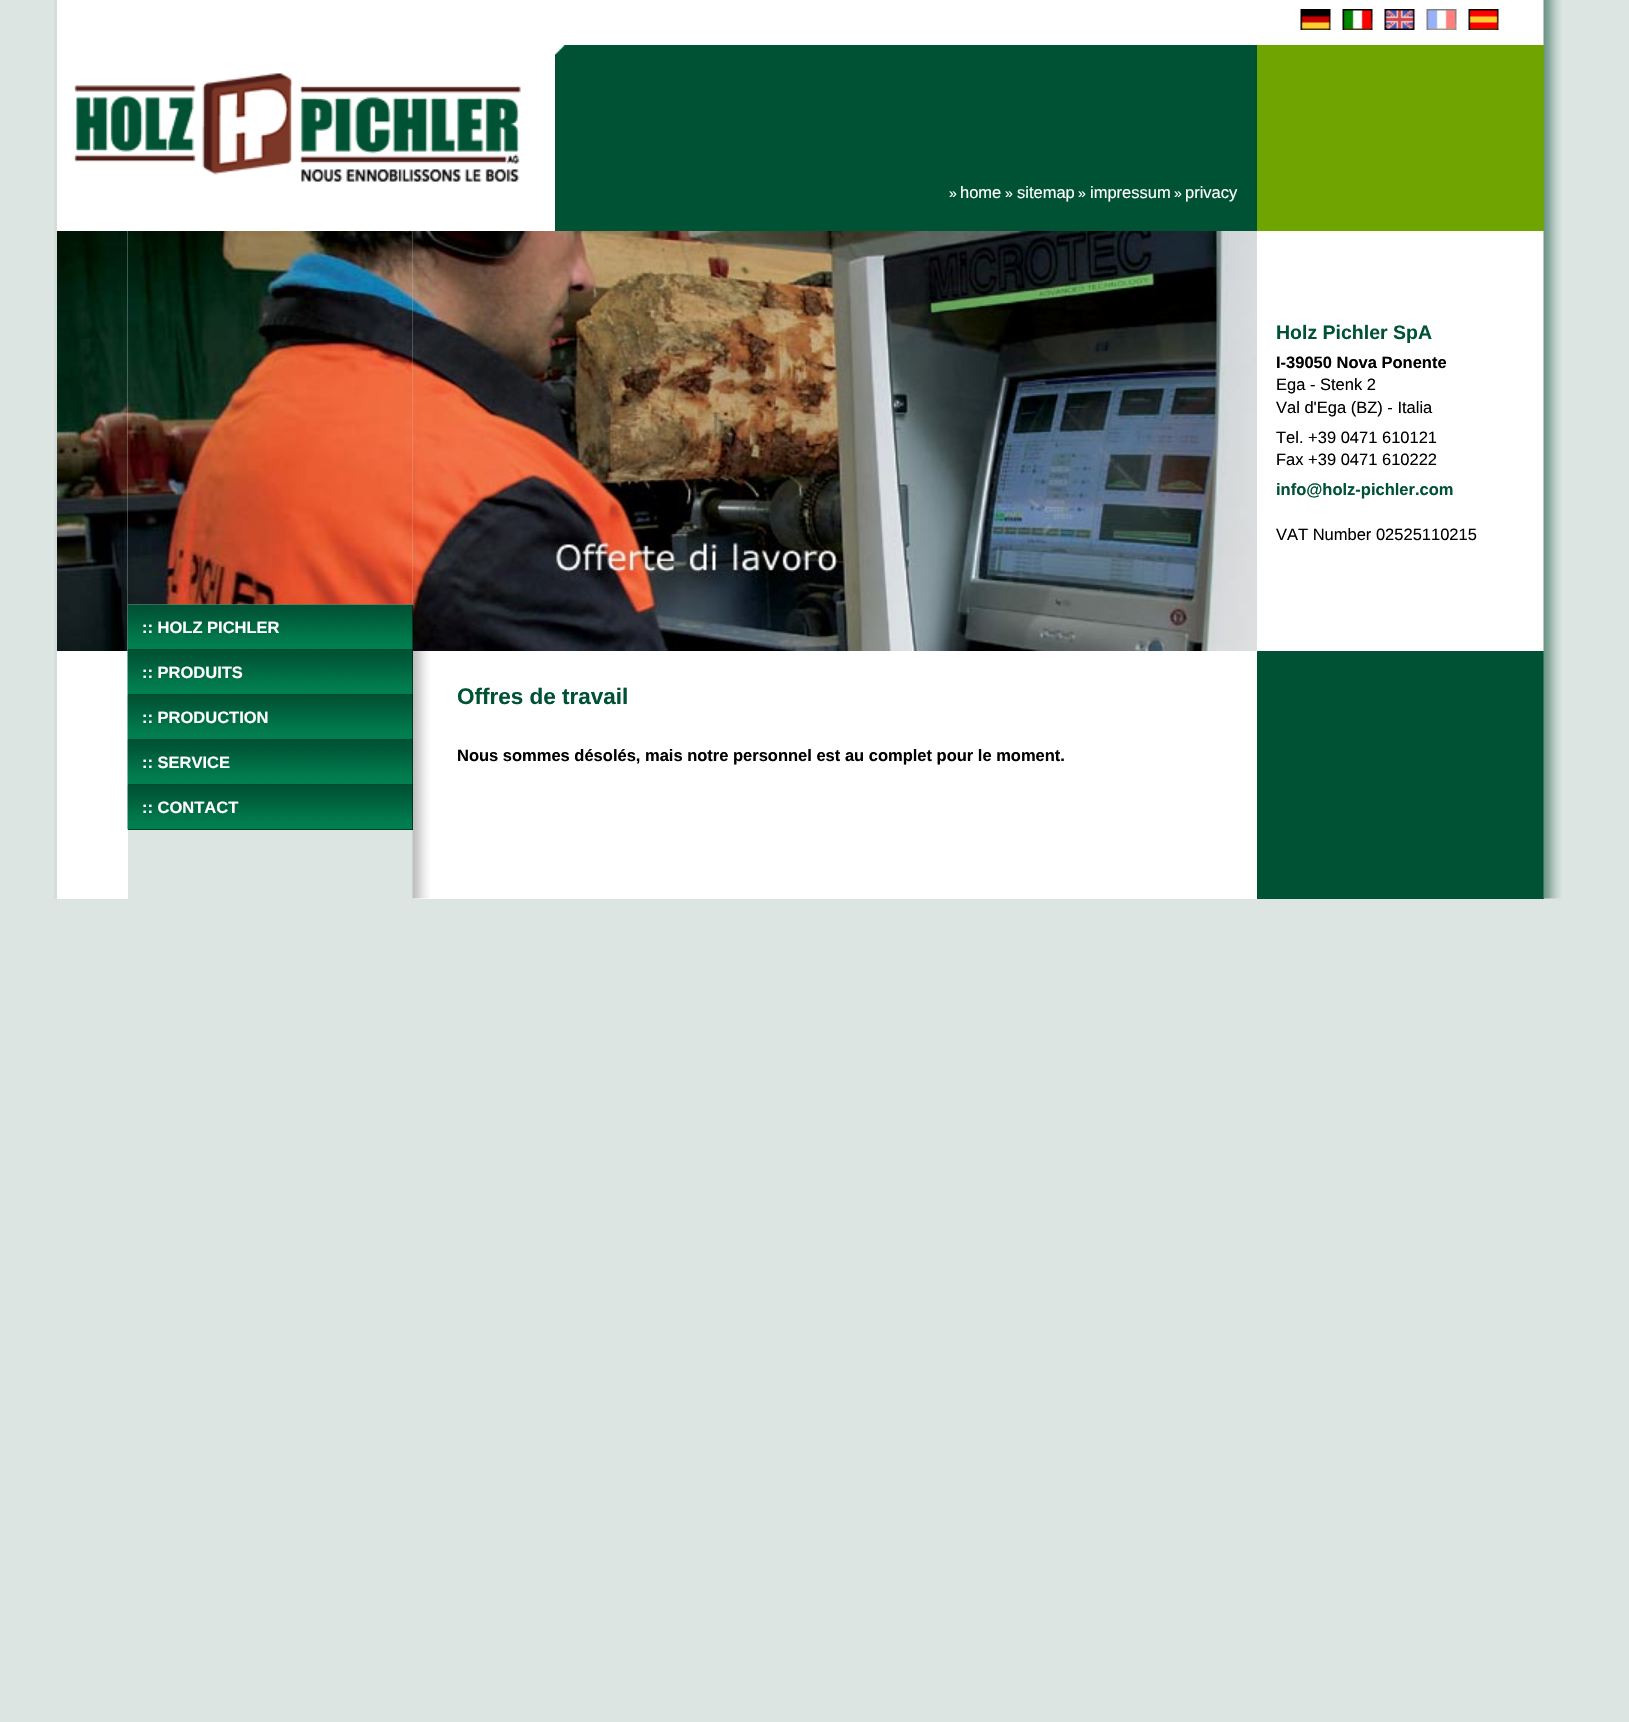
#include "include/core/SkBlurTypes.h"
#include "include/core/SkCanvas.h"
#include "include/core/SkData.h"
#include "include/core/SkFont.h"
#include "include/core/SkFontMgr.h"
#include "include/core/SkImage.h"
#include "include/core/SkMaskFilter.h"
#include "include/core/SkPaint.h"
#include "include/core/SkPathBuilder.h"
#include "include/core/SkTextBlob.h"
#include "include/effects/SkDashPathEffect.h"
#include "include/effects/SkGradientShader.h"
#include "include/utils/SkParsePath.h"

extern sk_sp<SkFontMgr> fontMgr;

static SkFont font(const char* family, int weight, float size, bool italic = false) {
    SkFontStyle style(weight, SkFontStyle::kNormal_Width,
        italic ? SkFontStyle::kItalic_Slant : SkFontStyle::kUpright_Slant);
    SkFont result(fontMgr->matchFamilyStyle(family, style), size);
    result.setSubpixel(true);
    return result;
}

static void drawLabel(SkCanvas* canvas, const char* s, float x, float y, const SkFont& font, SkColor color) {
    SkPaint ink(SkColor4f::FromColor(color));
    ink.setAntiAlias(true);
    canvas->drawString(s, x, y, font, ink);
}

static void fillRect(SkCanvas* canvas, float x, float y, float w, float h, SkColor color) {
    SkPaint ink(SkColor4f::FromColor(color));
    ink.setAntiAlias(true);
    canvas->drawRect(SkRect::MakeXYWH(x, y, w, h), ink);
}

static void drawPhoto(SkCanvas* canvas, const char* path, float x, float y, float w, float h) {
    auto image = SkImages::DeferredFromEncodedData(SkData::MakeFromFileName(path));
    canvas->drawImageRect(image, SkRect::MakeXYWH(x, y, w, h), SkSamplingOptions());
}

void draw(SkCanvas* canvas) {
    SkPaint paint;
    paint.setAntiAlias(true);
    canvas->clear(0xFFDDE5E2);
    fillRect(canvas, 54, 0, 3, 899, 0xFFD3DEDA);
    fillRect(canvas, 57, 0, 1487, 899, 0xFFFFFFFF);
    drawPhoto(canvas, "assets/img1.png", 1300, 9, 31, 21);
    drawPhoto(canvas, "assets/img2.png", 1342, 9, 31, 21);
    drawPhoto(canvas, "assets/img3.png", 1384, 9, 31, 21);
    drawPhoto(canvas, "assets/img4.png", 1426, 9, 31, 21);
    drawPhoto(canvas, "assets/img5.png", 1468, 9, 31, 21);
    drawPhoto(canvas, "assets/img6.png", 74, 73, 447, 109);
    fillRect(canvas, 1257, 45, 286, 186, 0xFF6FA401);
    fillRect(canvas, 1257, 651, 287, 248, 0xFF005234);
    drawPhoto(canvas, "assets/img17.png", 1543, 0, 19, 899);
    fillRect(canvas, 1543, 45, 1, 186, 0xFF6EA022);
    drawPhoto(canvas, "assets/img7.png", 555, 45, 702, 186);
    SkFont font1 = font("Liberation Sans", 400, 14);
    drawLabel(canvas, "»", 949, 198, font1, 0xFFFFFFFF);
    SkFont font2 = font("Liberation Sans", 400, 16.5f);
    drawLabel(canvas, "home", 960, 198, font2, 0xFFFFFFFF);
    drawLabel(canvas, "»", 1005, 198, font1, 0xFFFFFFFF);
    drawLabel(canvas, "sitemap", 1017, 198, font2, 0xFFFFFFFF);
    drawLabel(canvas, "»", 1078, 198, font1, 0xFFFFFFFF);
    drawLabel(canvas, "impressum", 1090, 198, font2, 0xFFFFFFFF);
    drawLabel(canvas, "»", 1174, 198, font1, 0xFFFFFFFF);
    drawLabel(canvas, "privacy", 1185, 198, font2, 0xFFFFFFFF);
    drawPhoto(canvas, "assets/img8.png", 57, 231, 71, 420);
    SkFont font3 = font("Liberation Sans", 700, 19.5f);
    drawLabel(canvas, "Holz Pichler SpA", 1276, 339, font3, 0xFF005234);
    SkFont font4 = font("Liberation Sans", 700, 16.5f);
    drawLabel(canvas, "I-39050 Nova Ponente", 1276, 368, font4, 0xFF000000);
    drawLabel(canvas, "Ega - Stenk 2", 1276, 390, font2, 0xFF000000);
    drawLabel(canvas, "Val d'Ega (BZ) - Italia", 1276, 413, font2, 0xFF000000);
    drawLabel(canvas, "Tel. +39 0471 610121", 1276, 443, font2, 0xFF000000);
    drawLabel(canvas, "Fax +39 0471 610222", 1276, 465, font2, 0xFF000000);
    drawLabel(canvas, "info@holz-pichler.com", 1276, 495, font4, 0xFF005234);
    drawLabel(canvas, "VAT Number 02525110215", 1276, 540, font2, 0xFF000000);
    fillRect(canvas, 128, 231, 285, 668, 0xFFDDE5E2);
    drawPhoto(canvas, "assets/img15.png", 412, 231, 18, 668);
    drawPhoto(canvas, "assets/img9.png", 127, 231, 286, 374);
    drawPhoto(canvas, "assets/img16.png", 412, 231, 845, 420);
    fillRect(canvas, 128, 605, 285, 225, 0xFF000000);
    drawPhoto(canvas, "assets/img10.png", 127, 604, 286, 46);
    drawLabel(canvas, ":: HOLZ PICHLER", 142, 633, font4, 0xFFFFFFFF);
    drawPhoto(canvas, "assets/img11.png", 127, 649, 286, 46);
    drawLabel(canvas, ":: PRODUITS", 142, 678, font4, 0xFFFFFFFF);
    drawPhoto(canvas, "assets/img12.png", 127, 694, 286, 46);
    drawLabel(canvas, ":: PRODUCTION", 142, 723, font4, 0xFFFFFFFF);
    drawPhoto(canvas, "assets/img13.png", 127, 739, 286, 46);
    drawLabel(canvas, ":: SERVICE", 142, 768, font4, 0xFFFFFFFF);
    drawPhoto(canvas, "assets/img14.png", 127, 784, 286, 46);
    drawLabel(canvas, ":: CONTACT", 142, 813, font4, 0xFFFFFFFF);
    SkFont font5 = font("Liberation Sans", 700, 22.5f);
    drawLabel(canvas, "Offres de travail", 457, 704, font5, 0xFF005234);
    drawLabel(canvas, "Nous sommes désolés, mais notre personnel est au complet pour le moment.", 457, 761, font4, 0xFF000000);
}
